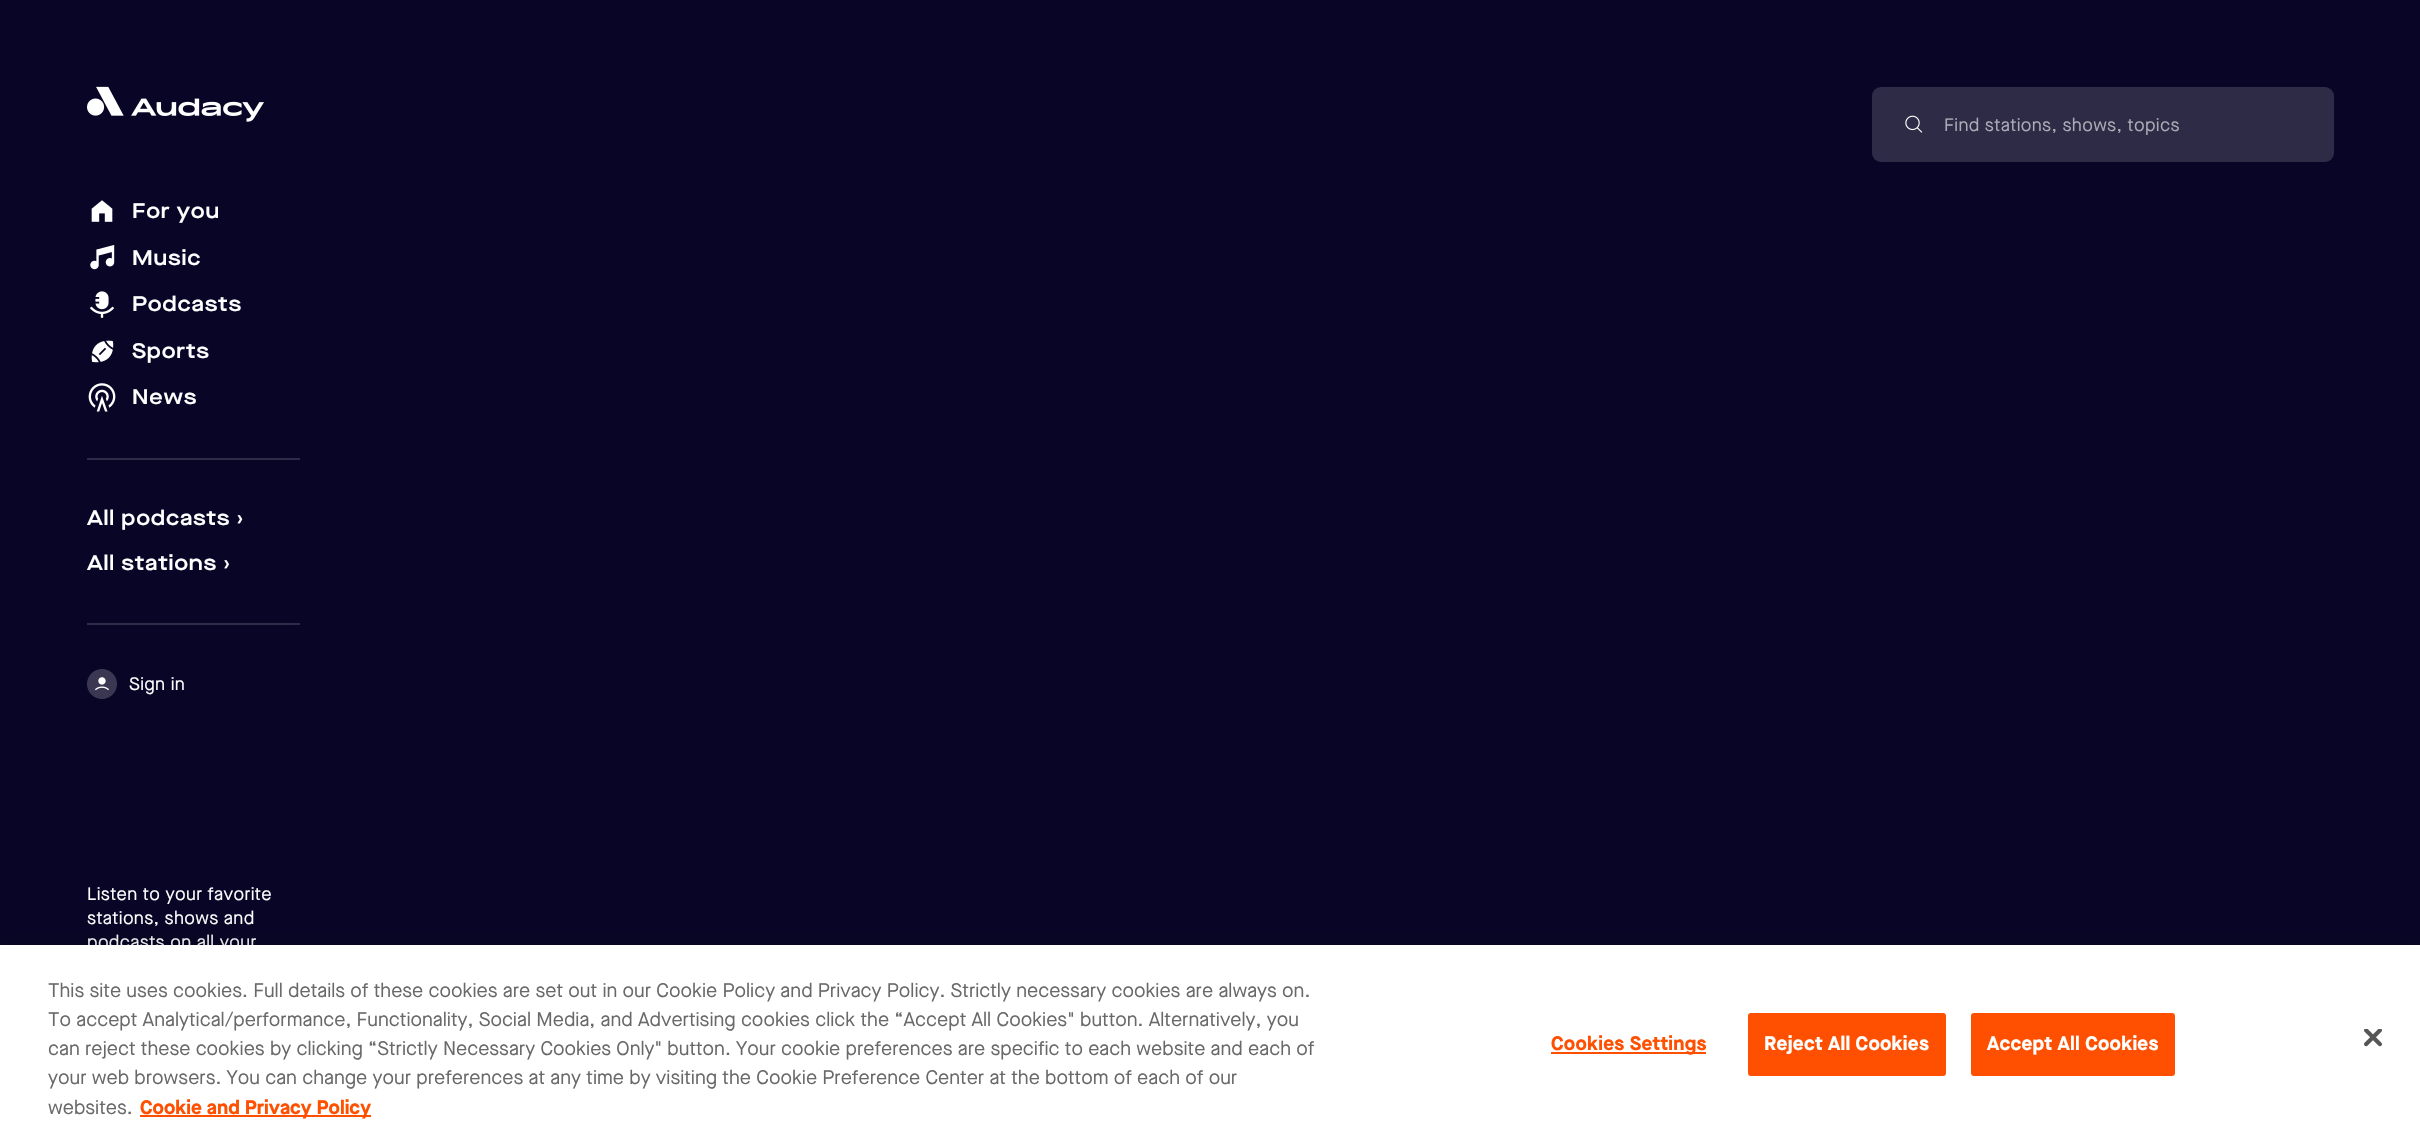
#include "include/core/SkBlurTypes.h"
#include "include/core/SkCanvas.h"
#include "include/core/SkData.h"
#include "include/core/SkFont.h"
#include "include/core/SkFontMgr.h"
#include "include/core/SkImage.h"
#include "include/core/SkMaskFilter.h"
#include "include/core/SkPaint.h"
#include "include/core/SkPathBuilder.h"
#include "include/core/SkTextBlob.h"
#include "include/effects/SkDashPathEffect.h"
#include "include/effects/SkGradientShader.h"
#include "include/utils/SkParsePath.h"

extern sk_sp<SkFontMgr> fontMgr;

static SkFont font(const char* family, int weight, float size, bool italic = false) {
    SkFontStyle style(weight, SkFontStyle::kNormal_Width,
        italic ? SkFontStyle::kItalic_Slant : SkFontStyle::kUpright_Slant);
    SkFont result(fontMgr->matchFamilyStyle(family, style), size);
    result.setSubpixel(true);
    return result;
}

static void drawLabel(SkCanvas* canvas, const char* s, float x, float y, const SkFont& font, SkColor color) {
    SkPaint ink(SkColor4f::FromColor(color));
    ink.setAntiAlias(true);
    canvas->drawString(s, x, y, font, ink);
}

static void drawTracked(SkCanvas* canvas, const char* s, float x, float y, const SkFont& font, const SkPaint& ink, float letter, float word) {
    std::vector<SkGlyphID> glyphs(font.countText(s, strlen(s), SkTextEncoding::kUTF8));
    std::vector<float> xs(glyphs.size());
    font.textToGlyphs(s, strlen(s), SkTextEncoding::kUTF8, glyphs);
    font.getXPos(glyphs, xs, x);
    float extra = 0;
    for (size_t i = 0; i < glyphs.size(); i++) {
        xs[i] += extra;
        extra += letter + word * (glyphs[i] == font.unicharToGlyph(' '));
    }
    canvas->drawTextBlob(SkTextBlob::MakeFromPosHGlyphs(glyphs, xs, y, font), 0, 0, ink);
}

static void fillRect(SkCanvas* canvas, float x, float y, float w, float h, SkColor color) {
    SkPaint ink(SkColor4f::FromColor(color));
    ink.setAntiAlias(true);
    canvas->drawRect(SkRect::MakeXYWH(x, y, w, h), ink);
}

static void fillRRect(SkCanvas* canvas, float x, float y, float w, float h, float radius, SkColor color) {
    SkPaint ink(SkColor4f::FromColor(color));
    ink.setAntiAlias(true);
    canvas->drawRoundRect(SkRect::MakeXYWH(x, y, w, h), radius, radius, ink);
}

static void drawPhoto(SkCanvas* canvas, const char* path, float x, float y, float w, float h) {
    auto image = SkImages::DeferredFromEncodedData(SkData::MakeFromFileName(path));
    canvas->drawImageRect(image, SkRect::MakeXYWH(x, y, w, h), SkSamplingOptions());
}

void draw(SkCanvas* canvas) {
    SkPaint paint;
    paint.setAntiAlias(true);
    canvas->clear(0xFF090527);
    fillRRect(canvas, 1872, 87, 462, 75, 9, 0xFF2E2B47);
    drawPhoto(canvas, "assets/img1.png", 1905, 115, 18, 18);
    SkFont font1 = font("Maison Neue", 400, 18);
    paint.setColor(0xFFABAAB5);
    drawTracked(canvas, "Find stations, shows, topics", 1944, 131, font1, paint, 0.35f, 0);
    drawPhoto(canvas, "assets/img2.png", 87, 86, 177, 36);
    fillRect(canvas, 87, 458, 213, 2, 0xFF2E2B47);
    drawPhoto(canvas, "assets/img3.png", 91, 200, 22, 22);
    SkFont font2 = font("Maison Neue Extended", 600, 21);
    paint.setColor(0xFFFFFFFF);
    drawTracked(canvas, "For you", 132, 218, font2, paint, 0.8f, 0);
    drawPhoto(canvas, "assets/img4.png", 90, 245, 25, 25);
    drawTracked(canvas, "Music", 132, 265, font2, paint, 0.8f, 0);
    drawPhoto(canvas, "assets/img5.png", 89, 291, 26, 27);
    drawTracked(canvas, "Podcasts", 132, 311, font2, paint, 0.8f, 0);
    drawPhoto(canvas, "assets/img6.png", 91, 340, 23, 23);
    drawTracked(canvas, "Sports", 132, 358, font2, paint, 0.8f, 0);
    drawPhoto(canvas, "assets/img7.png", 88, 383, 28, 29);
    drawTracked(canvas, "News", 132, 404, font2, paint, 0.8f, 0);
    fillRect(canvas, 87, 623, 213, 2, 0xFF2E2B47);
    drawTracked(canvas, "All podcasts ›", 87, 525, font2, paint, 0.8f, 0);
    drawTracked(canvas, "All stations ›", 87, 570, font2, paint, 0.8f, 0);
    drawPhoto(canvas, "assets/img8.png", 87, 669, 30, 30);
    drawTracked(canvas, "Sign in", 129, 690, font1, paint, 0.35f, 0);
    drawTracked(canvas, "Listen to your favorite", 87, 900, font1, paint, 0.35f, 0);
    drawTracked(canvas, "stations, shows and", 87, 924, font1, paint, 0.35f, 0);
    drawTracked(canvas, "podcasts on all your", 87, 948, font1, paint, 0.35f, 0);
    paint.setColor(0x33000000);
    paint.setMaskFilter(SkMaskFilter::MakeBlur(kNormal_SkBlurStyle, 13.5f));
    canvas->drawRect(SkRect::MakeXYWH(0, 945, 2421, 192), paint);
    paint.setMaskFilter(nullptr);
    fillRect(canvas, 0, 945, 2420, 192, 0xFFFFFFFF);
    SkFont font3 = font("Maison Neue", 400, 19.5f);
    drawLabel(canvas, "This site uses cookies. Full details of these cookies are set out in our Cookie Policy and Privacy Policy. Strictly necessary cookies are always on.", 48, 997, font3, 0xFF696969);
    drawLabel(canvas, "To accept Analytical/performance, Functionality, Social Media, and Advertising cookies click the “Accept All Cookies\" button. Alternatively, you", 48, 1026, font3, 0xFF696969);
    drawLabel(canvas, "can reject these cookies by clicking “Strictly Necessary Cookies Only\" button. Your cookie preferences are specific to each website and each of", 48, 1055, font3, 0xFF696969);
    drawLabel(canvas, "your web browsers. You can change your preferences at any time by visiting the Cookie Preference Center at the bottom of each of our", 48, 1084, font3, 0xFF696969);
    drawLabel(canvas, "websites.", 48, 1114, font3, 0xFF696969);
    fillRect(canvas, 140, 1115, 231, 2, 0xFFFE5000);
    SkFont font4 = font("Maison Neue", 700, 19.5f);
    drawLabel(canvas, "Cookie and Privacy Policy", 140, 1114, font4, 0xFFFE5000);
    fillRect(canvas, 1551, 1052, 155, 2, 0xFFFE5000);
    paint.setColor(0xFFFE5000);
    drawTracked(canvas, "Cookies Settings", 1551, 1050, font4, paint, 0.25f, 0);
    canvas->drawRoundRect(SkRect::MakeXYWH(1749, 1014, 196, 61), 2, 2, paint);
    paint.setStroke(true);
    paint.setStrokeWidth(2);
    canvas->drawRoundRect(SkRect::MakeXYWH(1749, 1014, 196, 61), 2, 2, paint);
    paint.setStroke(false);
    paint.setColor(0xFFFFFFFF);
    drawTracked(canvas, "Reject All Cookies", 1764, 1050, font4, paint, 0.25f, 0);
    paint.setColor(0xFFFE5000);
    canvas->drawRoundRect(SkRect::MakeXYWH(1972, 1014, 202, 61), 2, 2, paint);
    paint.setStroke(true);
    canvas->drawRoundRect(SkRect::MakeXYWH(1972, 1014, 202, 61), 2, 2, paint);
    paint.setStroke(false);
    paint.setColor(0xFFFFFFFF);
    drawTracked(canvas, "Accept All Cookies", 1987, 1050, font4, paint, 0.25f, 0);
    drawPhoto(canvas, "assets/img9.png", 2364, 1029, 18, 18);
}
